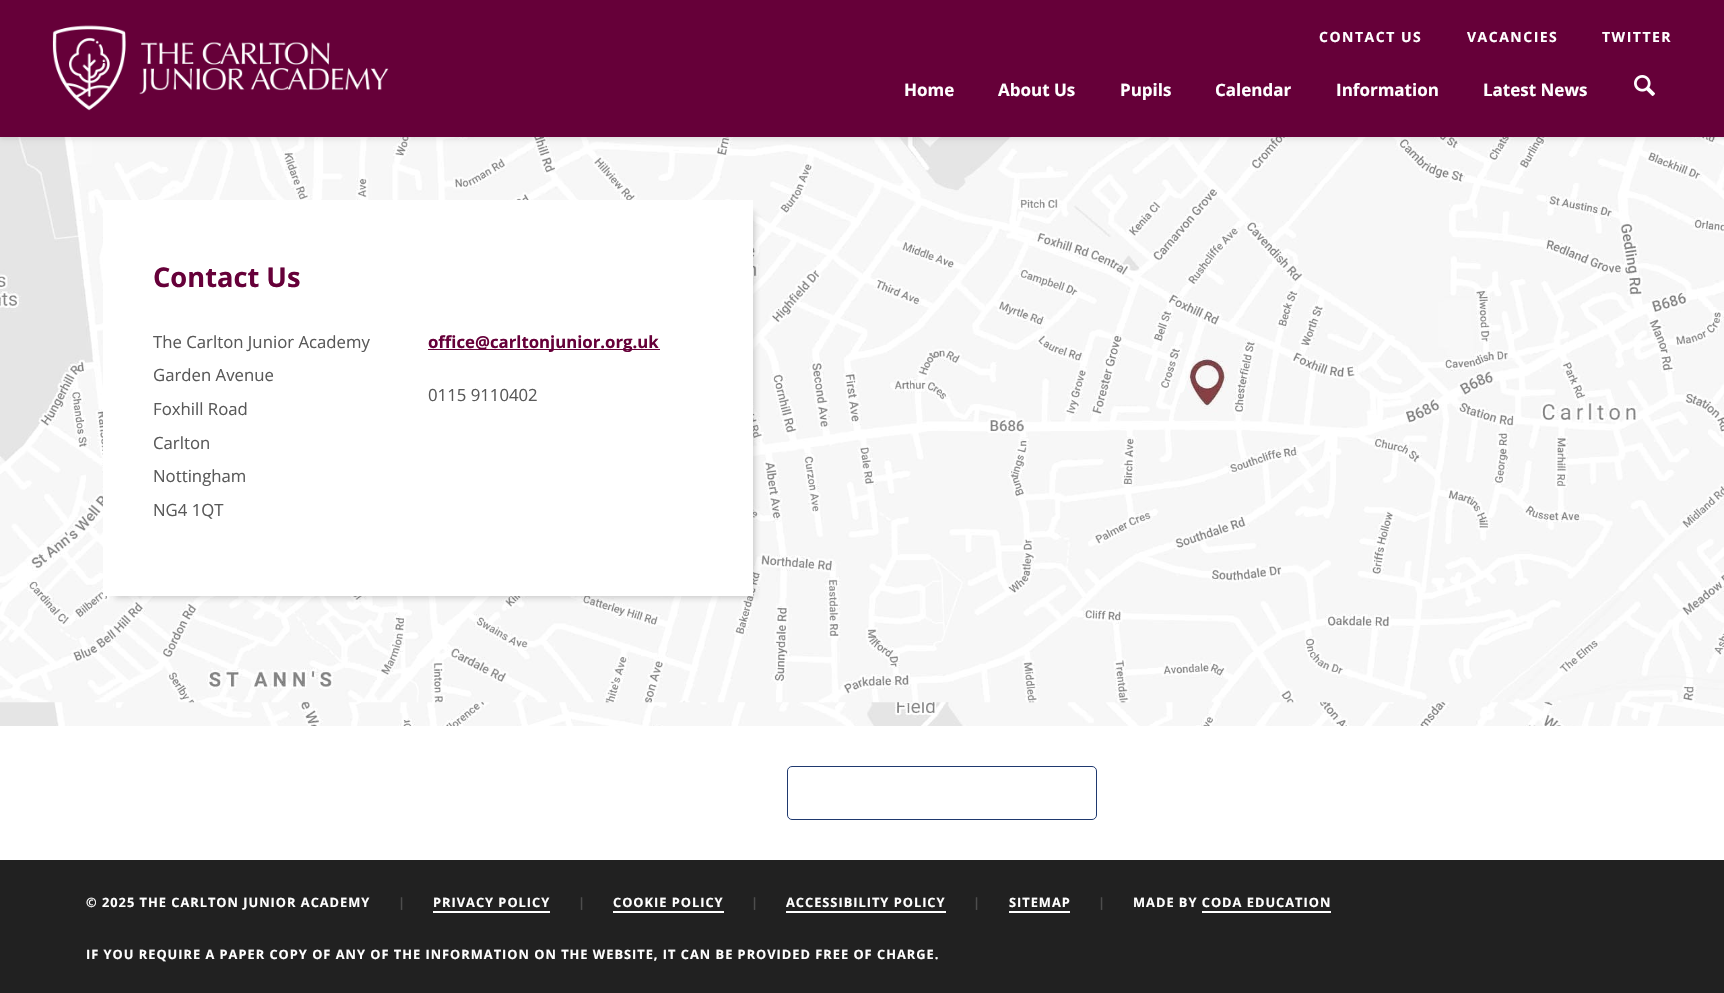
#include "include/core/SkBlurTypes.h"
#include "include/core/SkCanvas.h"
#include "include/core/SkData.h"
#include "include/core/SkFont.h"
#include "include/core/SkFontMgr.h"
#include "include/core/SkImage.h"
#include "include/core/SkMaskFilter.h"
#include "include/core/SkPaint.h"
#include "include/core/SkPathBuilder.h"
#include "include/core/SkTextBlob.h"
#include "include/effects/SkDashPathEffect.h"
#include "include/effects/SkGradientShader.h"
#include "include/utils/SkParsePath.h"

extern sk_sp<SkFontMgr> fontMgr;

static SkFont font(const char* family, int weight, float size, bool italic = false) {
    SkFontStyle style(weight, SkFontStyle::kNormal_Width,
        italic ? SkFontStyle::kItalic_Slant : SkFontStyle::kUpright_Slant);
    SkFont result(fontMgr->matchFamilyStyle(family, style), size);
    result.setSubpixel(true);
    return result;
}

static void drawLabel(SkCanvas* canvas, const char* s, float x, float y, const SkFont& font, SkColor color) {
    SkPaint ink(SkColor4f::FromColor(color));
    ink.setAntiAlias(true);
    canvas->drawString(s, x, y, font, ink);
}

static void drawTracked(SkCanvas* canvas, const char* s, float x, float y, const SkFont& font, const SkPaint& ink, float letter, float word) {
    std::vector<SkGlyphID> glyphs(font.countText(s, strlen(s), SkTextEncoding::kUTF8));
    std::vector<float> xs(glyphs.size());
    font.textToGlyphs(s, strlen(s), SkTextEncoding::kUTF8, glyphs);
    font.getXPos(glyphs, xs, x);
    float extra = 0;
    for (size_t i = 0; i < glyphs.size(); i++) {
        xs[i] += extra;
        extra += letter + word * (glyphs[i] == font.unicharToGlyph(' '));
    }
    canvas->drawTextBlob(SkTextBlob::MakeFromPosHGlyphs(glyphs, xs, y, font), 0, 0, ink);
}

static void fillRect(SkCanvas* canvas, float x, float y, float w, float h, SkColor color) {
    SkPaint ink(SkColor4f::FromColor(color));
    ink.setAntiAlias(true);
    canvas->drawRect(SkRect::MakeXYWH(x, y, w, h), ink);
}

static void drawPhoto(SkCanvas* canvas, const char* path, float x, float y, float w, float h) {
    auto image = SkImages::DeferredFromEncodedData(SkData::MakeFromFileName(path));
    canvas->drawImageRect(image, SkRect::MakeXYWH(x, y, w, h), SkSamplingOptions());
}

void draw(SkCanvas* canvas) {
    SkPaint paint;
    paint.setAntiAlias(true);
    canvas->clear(0xFFFFFFFF);
    drawPhoto(canvas, "assets/img3.png", 0, 137, 1724, 589);
    paint.setColor(0x1A000000);
    paint.setMaskFilter(SkMaskFilter::MakeBlur(kNormal_SkBlurStyle, 2.5f));
    canvas->drawRect(SkRect::MakeXYWH(0, 0, 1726, 139), paint);
    paint.setMaskFilter(nullptr);
    fillRect(canvas, 0, 0, 1724, 137, 0xFF660039);
    drawPhoto(canvas, "assets/img1.png", 52, 25, 337, 86);
    SkFont font1 = font("Open Sans", 700, 14);
    paint.setColor(0xFFFFFFFF);
    drawTracked(canvas, "CONTACT US", 1319, 42, font1, paint, 1.5f, 0);
    drawTracked(canvas, "VACANCIES", 1467, 42, font1, paint, 1.5f, 0);
    drawTracked(canvas, "TWITTER", 1602, 42, font1, paint, 1.5f, 0);
    SkFont font2 = font("Open Sans", 700, 17);
    drawLabel(canvas, "Home", 904, 96, font2, 0xFFFFFFFF);
    drawLabel(canvas, "About Us", 998, 96, font2, 0xFFFFFFFF);
    drawLabel(canvas, "Pupils", 1120, 96, font2, 0xFFFFFFFF);
    drawLabel(canvas, "Calendar", 1215, 96, font2, 0xFFFFFFFF);
    drawLabel(canvas, "Information", 1336, 96, font2, 0xFFFFFFFF);
    drawLabel(canvas, "Latest News", 1483, 96, font2, 0xFFFFFFFF);
    drawPhoto(canvas, "assets/img2.png", 1634, 75, 21, 21);
    paint.setColor(0x382E2E2E);
    paint.setMaskFilter(SkMaskFilter::MakeBlur(kNormal_SkBlurStyle, 3));
    canvas->drawRect(SkRect::MakeXYWH(115, 212, 640, 386), paint);
    paint.setMaskFilter(nullptr);
    fillRect(canvas, 103, 200, 650, 396, 0xFFFFFFFF);
    SkFont font3 = font("Open Sans", 700, 27.25f);
    drawLabel(canvas, "Contact Us", 153, 287, font3, 0xFF660039);
    SkFont font4 = font("Open Sans", 400, 16.75f);
    drawLabel(canvas, "The Carlton Junior Academy", 153, 348, font4, 0xFF595959);
    drawLabel(canvas, "Garden Avenue", 153, 381, font4, 0xFF595959);
    drawLabel(canvas, "Foxhill Road", 153, 415, font4, 0xFF595959);
    drawLabel(canvas, "Carlton", 153, 449, font4, 0xFF595959);
    drawLabel(canvas, "Nottingham", 153, 482, font4, 0xFF595959);
    drawLabel(canvas, "NG4 1QT", 153, 516, font4, 0xFF595959);
    fillRect(canvas, 428, 349, 232, 1, 0xFF660039);
    SkFont font5 = font("Open Sans", 700, 16.75f);
    drawLabel(canvas, "office@carltonjunior.org.uk", 428, 348, font5, 0xFF660039);
    drawLabel(canvas, "0115 9110402", 428, 401, font4, 0xFF595959);
    paint.setStroke(true);
    paint.setStrokeWidth(1);
    paint.setColor(0xFF1F396F);
    canvas->drawRoundRect(SkRect::MakeXYWH(787.5f, 766.5f, 309, 53), 4.5f, 4.5f, paint);
    fillRect(canvas, 0, 860, 1724, 133, 0xFF212121);
    SkFont font6 = font("Open Sans", 700, 12.8f);
    paint.setStroke(false);
    paint.setColor(0xFFFFFFFF);
    drawTracked(canvas, "© 2025 THE CARLTON JUNIOR ACADEMY", 86, 907, font6, paint, 1, 0);
    paint.setColor(0xFF4D4D4D);
    drawTracked(canvas, "|", 398, 907, font6, paint, 1, 0);
    paint.setColor(0xFFFFFFFF);
    drawTracked(canvas, "PRIVACY POLICY", 433, 907, font6, paint, 1, 0);
    fillRect(canvas, 433, 911, 117, 2, 0xFFFFFFFF);
    paint.setColor(0xFF4D4D4D);
    drawTracked(canvas, "|", 578, 907, font6, paint, 1, 0);
    paint.setColor(0xFFFFFFFF);
    drawTracked(canvas, "COOKIE POLICY", 613, 907, font6, paint, 1, 0);
    fillRect(canvas, 613, 911, 111, 2, 0xFFFFFFFF);
    paint.setColor(0xFF4D4D4D);
    drawTracked(canvas, "|", 751, 907, font6, paint, 1, 0);
    paint.setColor(0xFFFFFFFF);
    drawTracked(canvas, "ACCESSIBILITY POLICY", 786, 907, font6, paint, 1, 0);
    fillRect(canvas, 786, 911, 160, 2, 0xFFFFFFFF);
    paint.setColor(0xFF4D4D4D);
    drawTracked(canvas, "|", 973, 907, font6, paint, 1, 0);
    paint.setColor(0xFFFFFFFF);
    drawTracked(canvas, "SITEMAP", 1009, 907, font6, paint, 1, 0);
    fillRect(canvas, 1009, 911, 61, 2, 0xFFFFFFFF);
    paint.setColor(0xFF4D4D4D);
    drawTracked(canvas, "|", 1098, 907, font6, paint, 1, 0);
    paint.setColor(0xFFFFFFFF);
    drawTracked(canvas, "MADE BY CODA EDUCATION", 1133, 907, font6, paint, 1, 0);
    fillRect(canvas, 1202, 911, 129, 2, 0xFFFFFFFF);
    drawTracked(canvas, "IF YOU REQUIRE A PAPER COPY OF ANY OF THE INFORMATION ON THE WEBSITE, IT CAN BE PROVIDED FREE OF CHARGE.", 86, 959, font6, paint, 1, 0);
}
